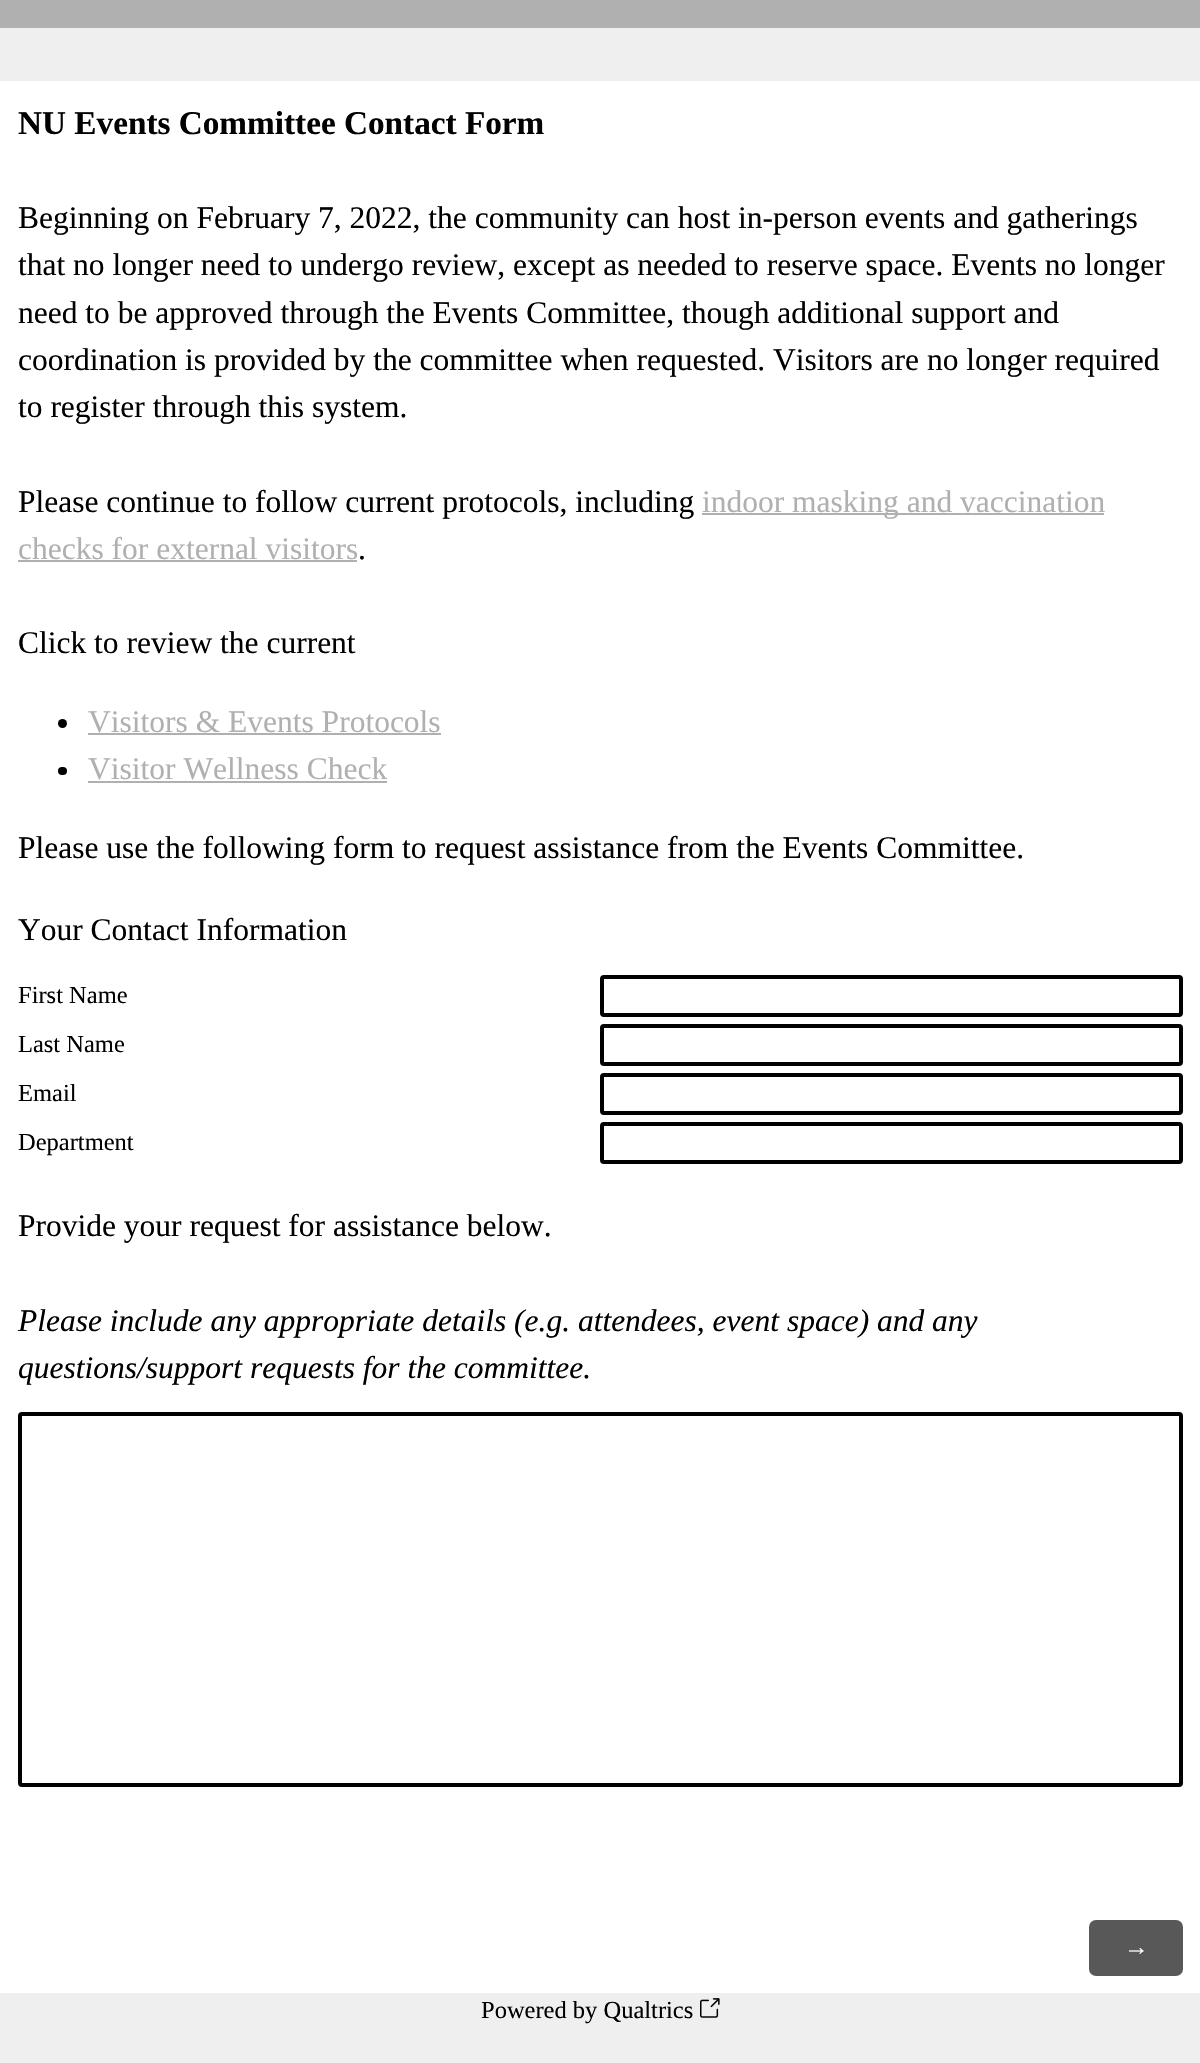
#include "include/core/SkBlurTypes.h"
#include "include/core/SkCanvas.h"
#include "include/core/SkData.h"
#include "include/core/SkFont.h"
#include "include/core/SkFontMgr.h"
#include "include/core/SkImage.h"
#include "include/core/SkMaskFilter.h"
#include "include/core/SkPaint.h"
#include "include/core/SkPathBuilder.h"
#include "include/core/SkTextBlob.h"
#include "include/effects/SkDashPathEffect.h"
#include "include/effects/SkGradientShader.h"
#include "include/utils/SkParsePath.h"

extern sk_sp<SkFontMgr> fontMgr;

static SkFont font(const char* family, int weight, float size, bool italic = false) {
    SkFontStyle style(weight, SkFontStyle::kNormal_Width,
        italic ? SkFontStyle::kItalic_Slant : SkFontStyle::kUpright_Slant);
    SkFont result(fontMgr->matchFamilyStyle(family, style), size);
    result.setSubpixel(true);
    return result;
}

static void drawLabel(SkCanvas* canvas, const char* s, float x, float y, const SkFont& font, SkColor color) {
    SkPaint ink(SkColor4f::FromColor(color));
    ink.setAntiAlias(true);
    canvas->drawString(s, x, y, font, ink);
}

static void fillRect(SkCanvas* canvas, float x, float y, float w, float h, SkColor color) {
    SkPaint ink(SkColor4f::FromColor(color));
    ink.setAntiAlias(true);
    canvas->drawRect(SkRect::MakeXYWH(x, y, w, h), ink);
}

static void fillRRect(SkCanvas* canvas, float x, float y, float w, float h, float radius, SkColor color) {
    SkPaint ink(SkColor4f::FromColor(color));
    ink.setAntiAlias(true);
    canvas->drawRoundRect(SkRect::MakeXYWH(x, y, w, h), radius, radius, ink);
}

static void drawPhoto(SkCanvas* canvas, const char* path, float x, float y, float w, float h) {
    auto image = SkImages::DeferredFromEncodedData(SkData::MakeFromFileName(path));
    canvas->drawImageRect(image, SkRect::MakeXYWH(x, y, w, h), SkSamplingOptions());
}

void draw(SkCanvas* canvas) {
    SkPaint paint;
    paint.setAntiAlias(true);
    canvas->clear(0xFFEFEFEF);
    fillRect(canvas, 0, 0, 1200, 28, 0xFFB0B0B0);
    fillRect(canvas, 0, 81, 1200, 1912, 0xFFFFFFFF);
    SkFont font1 = font("Liberation Serif", 700, 33.25f);
    drawLabel(canvas, "NU Events Committee Contact Form", 18, 134, font1, 0xFF000000);
    SkFont font2 = font("Liberation Serif", 400, 31.5f);
    drawLabel(canvas, "Beginning on February 7, 2022, the community can host in-person events and gatherings", 18, 228, font2, 0xFF000000);
    drawLabel(canvas, "that no longer need to undergo review, except as needed to reserve space. Events no longer", 18, 275, font2, 0xFF000000);
    drawLabel(canvas, "need to be approved through the Events Committee, though additional support and", 18, 323, font2, 0xFF000000);
    drawLabel(canvas, "coordination is provided by the committee when requested. Visitors are no longer required", 18, 370, font2, 0xFF000000);
    drawLabel(canvas, "to register through this system.", 18, 417, font2, 0xFF000000);
    drawLabel(canvas, "Please continue to follow current protocols, including", 18, 512, font2, 0xFF000000);
    fillRect(canvas, 702, 513, 402, 2, 0xFFB0B0B0);
    drawLabel(canvas, "indoor masking and vaccination", 702, 512, font2, 0xFFB0B0B0);
    drawLabel(canvas, "checks for external visitors", 18, 559, font2, 0xFFB0B0B0);
    drawLabel(canvas, ".", 358, 559, font2, 0xFF000000);
    fillRect(canvas, 18, 560, 339, 2, 0xFFB0B0B0);
    drawLabel(canvas, "Click to review the current", 18, 653, font2, 0xFF000000);
    paint.setColor(0xFF000000);
    canvas->drawCircle(62.5f, 723.5f, 4.5f, paint);
    drawLabel(canvas, "Visitors & Events Protocols", 88, 732, font2, 0xFFB0B0B0);
    fillRect(canvas, 88, 733, 353, 2, 0xFFB0B0B0);
    fillRRect(canvas, 58, 767, 9, 8, 4, 0xFF000000);
    drawLabel(canvas, "Visitor Wellness Check", 88, 779, font2, 0xFFB0B0B0);
    fillRect(canvas, 88, 781, 299, 2, 0xFFB0B0B0);
    drawLabel(canvas, "Please use the following form to request assistance from the Events Committee.", 18, 858, font2, 0xFF000000);
    drawLabel(canvas, "Your Contact Information", 18, 940, font2, 0xFF000000);
    SkFont font3 = font("Liberation Serif", 400, 24.5f);
    drawLabel(canvas, "First Name", 18, 1003, font3, 0xFF000000);
    paint.setStroke(true);
    paint.setStrokeWidth(4);
    canvas->drawRoundRect(SkRect::MakeXYWH(602, 977, 579, 38), 2, 2, paint);
    drawLabel(canvas, "Last Name", 18, 1052, font3, 0xFF000000);
    canvas->drawRoundRect(SkRect::MakeXYWH(602, 1026, 579, 38), 2, 2, paint);
    drawLabel(canvas, "Email", 18, 1101, font3, 0xFF000000);
    canvas->drawRoundRect(SkRect::MakeXYWH(602, 1075, 579, 38), 2, 2, paint);
    drawLabel(canvas, "Department", 18, 1150, font3, 0xFF000000);
    canvas->drawRoundRect(SkRect::MakeXYWH(602, 1124, 579, 38), 2, 2, paint);
    drawLabel(canvas, "Provide your request for assistance below.", 18, 1236, font2, 0xFF000000);
    SkFont font4 = font("Liberation Serif", 400, 31.5f, true);
    drawLabel(canvas, "Please include any appropriate details (e.g. attendees, event space) and any", 18, 1331, font4, 0xFF000000);
    drawLabel(canvas, "questions/support requests for the committee.", 18, 1378, font4, 0xFF000000);
    canvas->drawRoundRect(SkRect::MakeXYWH(20, 1414, 1161, 371), 2, 2, paint);
    fillRRect(canvas, 1089, 1920, 94, 56, 7, 0xFF585858);
    drawLabel(canvas, "→", 1124, 1955, font3, 0xFFFFFFFF);
    drawLabel(canvas, "Powered by Qualtrics", 481, 2018, font3, 0xFF000000);
    drawPhoto(canvas, "assets/img1.png", 700, 1998, 20, 20);
}
